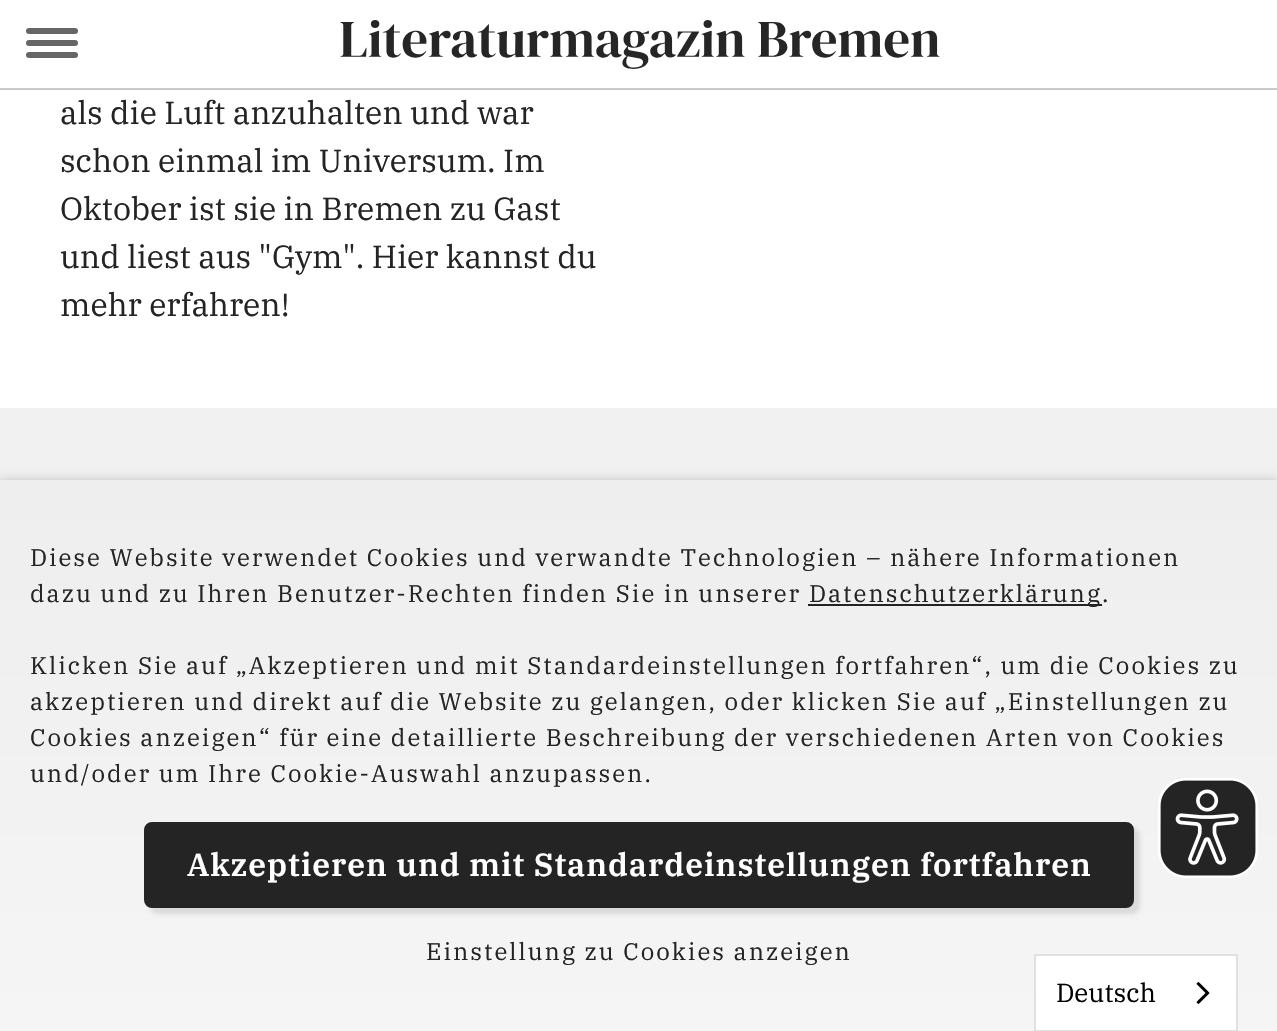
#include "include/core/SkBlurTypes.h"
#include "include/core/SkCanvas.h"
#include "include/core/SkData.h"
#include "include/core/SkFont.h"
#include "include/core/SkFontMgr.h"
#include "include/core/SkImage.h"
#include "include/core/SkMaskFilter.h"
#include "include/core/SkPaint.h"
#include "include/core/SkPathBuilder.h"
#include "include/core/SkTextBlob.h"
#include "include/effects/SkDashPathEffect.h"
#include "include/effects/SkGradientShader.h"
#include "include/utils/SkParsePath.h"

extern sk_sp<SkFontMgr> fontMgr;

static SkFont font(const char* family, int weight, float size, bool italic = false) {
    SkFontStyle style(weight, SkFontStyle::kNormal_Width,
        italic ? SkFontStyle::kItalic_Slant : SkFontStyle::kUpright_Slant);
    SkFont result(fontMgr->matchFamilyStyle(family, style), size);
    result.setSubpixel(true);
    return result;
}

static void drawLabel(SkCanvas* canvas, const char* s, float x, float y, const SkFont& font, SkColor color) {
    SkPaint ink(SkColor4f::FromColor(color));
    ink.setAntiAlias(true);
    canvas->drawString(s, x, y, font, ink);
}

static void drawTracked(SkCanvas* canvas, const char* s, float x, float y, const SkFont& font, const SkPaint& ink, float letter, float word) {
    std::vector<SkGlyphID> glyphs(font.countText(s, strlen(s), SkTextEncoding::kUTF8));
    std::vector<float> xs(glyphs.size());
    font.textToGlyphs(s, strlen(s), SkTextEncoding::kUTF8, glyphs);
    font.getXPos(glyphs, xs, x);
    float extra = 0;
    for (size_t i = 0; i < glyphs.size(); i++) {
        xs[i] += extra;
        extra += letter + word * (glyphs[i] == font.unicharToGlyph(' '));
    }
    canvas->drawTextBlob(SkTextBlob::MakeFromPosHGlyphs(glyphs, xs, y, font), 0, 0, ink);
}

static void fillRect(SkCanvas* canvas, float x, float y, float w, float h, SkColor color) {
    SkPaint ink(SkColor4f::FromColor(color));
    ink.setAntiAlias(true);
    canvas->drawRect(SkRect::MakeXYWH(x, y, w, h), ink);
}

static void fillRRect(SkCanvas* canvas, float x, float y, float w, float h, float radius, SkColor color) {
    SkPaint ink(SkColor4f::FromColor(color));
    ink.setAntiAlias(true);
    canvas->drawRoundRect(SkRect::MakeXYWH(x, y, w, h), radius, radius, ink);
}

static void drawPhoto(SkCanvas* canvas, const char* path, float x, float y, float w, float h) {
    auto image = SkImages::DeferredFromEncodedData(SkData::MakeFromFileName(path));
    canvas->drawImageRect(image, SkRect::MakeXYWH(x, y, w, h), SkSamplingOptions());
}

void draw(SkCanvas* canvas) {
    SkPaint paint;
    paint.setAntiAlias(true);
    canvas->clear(0xFFFFFFFF);
    fillRect(canvas, 0, 88, 1277, 2, 0xFFCACACA);
    fillRRect(canvas, 26, 52, 52, 6, 3, 0xFF666666);
    fillRRect(canvas, 26, 28, 52, 6, 3, 0xFF666666);
    fillRRect(canvas, 26, 40, 52, 6, 3, 0xFF666666);
    drawPhoto(canvas, "assets/img1.png", 340, 20, 600, 49);
    SkFont font1 = font("IBM Plex Serif", 400, 32);
    drawLabel(canvas, "als die Luft anzuhalten und war", 60, 124, font1, 0xFF242424);
    drawLabel(canvas, "schon einmal im Universum. Im", 60, 172, font1, 0xFF242424);
    drawLabel(canvas, "Oktober ist sie in Bremen zu Gast", 60, 220, font1, 0xFF242424);
    drawLabel(canvas, "und liest aus \"Gym\". Hier kannst du", 60, 268, font1, 0xFF242424);
    drawLabel(canvas, "mehr erfahren!", 60, 316, font1, 0xFF242424);
    fillRect(canvas, 0, 408, 1277, 72, 0xFFF1F1F1);
    paint.setColor(0x33000000);
    paint.setMaskFilter(SkMaskFilter::MakeBlur(kNormal_SkBlurStyle, 5));
    canvas->drawRect(SkRect::MakeXYWH(0, 480, 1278, 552), paint);
    paint.setMaskFilter(nullptr);
    {
        const SkColor colors[] = {0xFFEEEEEE, 0xFFF5F5F5};
        const float stops[] = {0, 1};
        const SkPoint ends[] = {{639, 480}, {639, 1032}};
        paint.setShader(SkGradientShader::MakeLinear(ends, colors, stops, 2, SkTileMode::kClamp));
        paint.setAlpha(255);
    }
    canvas->drawRect(SkRect::MakeXYWH(0, 480, 1277, 551), paint);
    SkFont font2 = font("IBM Plex Serif", 400, 24);
    paint.setShader(nullptr);
    paint.setColor(0xFF242424);
    drawTracked(canvas, "Diese Website verwendet Cookies und verwandte Technologien – nähere Informationen", 30, 566, font2, paint, 2, 0);
    drawTracked(canvas, "dazu und zu Ihren Benutzer-Rechten finden Sie in unserer", 30, 602, font2, paint, 2, 0);
    fillRect(canvas, 808, 604, 294, 2, 0xFF242424);
    drawTracked(canvas, "Datenschutzerklärung.", 809, 602, font2, paint, 2, 0);
    drawTracked(canvas, "Klicken Sie auf „Akzeptieren und mit Standardeinstellungen fortfahren“, um die Cookies zu", 30, 674, font2, paint, 2, 0);
    drawTracked(canvas, "akzeptieren und direkt auf die Website zu gelangen, oder klicken Sie auf „Einstellungen zu", 30, 710, font2, paint, 2, 0);
    drawTracked(canvas, "Cookies anzeigen“ für eine detaillierte Beschreibung der verschiedenen Arten von Cookies", 30, 746, font2, paint, 2, 0);
    drawTracked(canvas, "und/oder um Ihre Cookie-Auswahl anzupassen.", 30, 782, font2, paint, 2, 0);
    paint.setColor(0x1A000000);
    paint.setMaskFilter(SkMaskFilter::MakeBlur(kNormal_SkBlurStyle, 2));
    canvas->drawRoundRect(SkRect::MakeXYWH(150, 828, 990, 86), 8, 8, paint);
    paint.setMaskFilter(nullptr);
    paint.setColor(0xFF242424);
    canvas->drawRoundRect(SkRect::MakeXYWH(145, 823, 988, 84), 7, 7, paint);
    paint.setStroke(true);
    paint.setStrokeWidth(2);
    canvas->drawRoundRect(SkRect::MakeXYWH(145, 823, 988, 84), 7, 7, paint);
    SkFont font3 = font("IBM Plex Serif", 600, 32);
    paint.setStroke(false);
    paint.setColor(0xFFFFFFFF);
    drawTracked(canvas, "Akzeptieren und mit Standardeinstellungen fortfahren", 187, 876, font3, paint, 1, 0);
    paint.setColor(0xFF242424);
    drawTracked(canvas, "Einstellung zu Cookies anzeigen", 426, 960, font2, paint, 2, 0);
    drawPhoto(canvas, "assets/img2.png", 1158, 778, 100, 100);
    paint.setColor(0xFFFFFFFF);
    canvas->drawRect(SkRect::MakeXYWH(1035, 955, 202, 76), paint);
    paint.setStroke(true);
    paint.setColor(0xFFE0E0E0);
    canvas->drawRect(SkRect::MakeXYWH(1035, 955, 202, 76), paint);
    SkFont font4 = font("IBM Plex Serif", 400, 26);
    drawLabel(canvas, "Deutsch", 1056, 1002, font4, 0xFF000000);
    drawPhoto(canvas, "assets/img3.png", 1196, 982, 14, 22);
}
